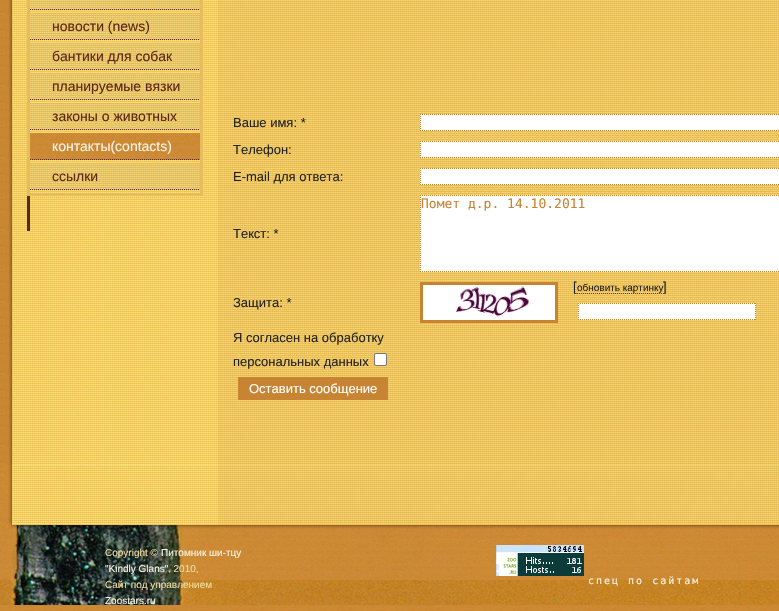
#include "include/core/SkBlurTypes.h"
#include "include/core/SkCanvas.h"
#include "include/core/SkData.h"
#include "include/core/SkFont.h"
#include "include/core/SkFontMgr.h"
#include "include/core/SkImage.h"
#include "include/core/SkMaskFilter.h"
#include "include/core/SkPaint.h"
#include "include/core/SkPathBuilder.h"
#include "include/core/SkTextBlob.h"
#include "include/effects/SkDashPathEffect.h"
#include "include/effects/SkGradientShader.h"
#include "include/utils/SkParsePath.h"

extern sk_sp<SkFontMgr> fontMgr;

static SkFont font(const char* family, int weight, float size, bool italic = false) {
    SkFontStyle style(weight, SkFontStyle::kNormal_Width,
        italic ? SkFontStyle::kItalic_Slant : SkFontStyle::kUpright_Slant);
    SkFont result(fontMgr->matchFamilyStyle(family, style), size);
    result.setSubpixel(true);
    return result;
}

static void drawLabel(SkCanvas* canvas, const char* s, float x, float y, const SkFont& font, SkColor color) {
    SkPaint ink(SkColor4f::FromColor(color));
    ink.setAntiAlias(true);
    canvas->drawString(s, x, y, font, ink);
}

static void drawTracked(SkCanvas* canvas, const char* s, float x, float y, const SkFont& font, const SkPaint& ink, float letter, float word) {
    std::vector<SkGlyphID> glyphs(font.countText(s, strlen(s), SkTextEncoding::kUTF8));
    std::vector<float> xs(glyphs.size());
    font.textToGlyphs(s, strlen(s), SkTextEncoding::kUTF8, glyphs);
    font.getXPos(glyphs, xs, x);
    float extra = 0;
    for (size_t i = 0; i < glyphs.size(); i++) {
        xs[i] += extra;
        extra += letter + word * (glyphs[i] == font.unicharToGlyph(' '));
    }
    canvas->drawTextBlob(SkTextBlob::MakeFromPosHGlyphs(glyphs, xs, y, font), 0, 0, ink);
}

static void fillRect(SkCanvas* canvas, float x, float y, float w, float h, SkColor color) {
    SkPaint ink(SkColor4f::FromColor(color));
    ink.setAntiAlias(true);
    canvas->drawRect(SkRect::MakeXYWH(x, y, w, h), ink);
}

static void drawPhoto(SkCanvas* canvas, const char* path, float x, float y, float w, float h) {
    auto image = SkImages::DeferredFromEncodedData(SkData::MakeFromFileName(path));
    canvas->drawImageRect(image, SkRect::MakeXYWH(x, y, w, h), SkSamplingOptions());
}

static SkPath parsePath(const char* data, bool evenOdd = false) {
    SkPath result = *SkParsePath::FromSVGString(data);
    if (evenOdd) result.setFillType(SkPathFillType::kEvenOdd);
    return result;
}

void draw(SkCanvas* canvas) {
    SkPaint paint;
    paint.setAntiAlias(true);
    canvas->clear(0xFFFFFFFF);
    drawPhoto(canvas, "assets/img1.png", 0, 605, 779, 6);
    drawPhoto(canvas, "assets/img2.png", 0, 0, 779, 465);
    paint.setStroke(true);
    paint.setStrokeWidth(3);
    paint.setColor(0xFFE7BD5C);
    canvas->drawRect(SkRect::MakeXYWH(28.5f, -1.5f, 173, 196), paint);
    drawPhoto(canvas, "assets/img3.png", 30, 0, 170, 10);
    paint.setStrokeWidth(1);
    paint.setColor(0xFF5E2617);
    paint.setPathEffect(SkDashPathEffect::Make({{1, 1}}, 0));
    canvas->drawPath(parsePath("M30 9.5H200"), paint);
    paint.setPathEffect(nullptr);
    drawPhoto(canvas, "assets/img4.png", 30, 13, 170, 27);
    paint.setPathEffect(SkDashPathEffect::Make({{1, 1}}, 0));
    canvas->drawPath(parsePath("M30 39.5H200"), paint);
    paint.setPathEffect(nullptr);
    SkFont font1 = font("Liberation Sans", 400, 14);
    drawLabel(canvas, "новости (news)", 52, 31, font1, 0xFF5E2617);
    drawPhoto(canvas, "assets/img4.png", 30, 43, 170, 27);
    paint.setPathEffect(SkDashPathEffect::Make({{1, 1}}, 0));
    canvas->drawPath(parsePath("M30 69.5H200"), paint);
    paint.setPathEffect(nullptr);
    drawLabel(canvas, "бантики для собак", 52, 61, font1, 0xFF5E2617);
    drawPhoto(canvas, "assets/img4.png", 30, 73, 170, 27);
    paint.setPathEffect(SkDashPathEffect::Make({{1, 1}}, 0));
    canvas->drawPath(parsePath("M30 99.5H200"), paint);
    paint.setPathEffect(nullptr);
    drawLabel(canvas, "планируемые вязки", 52, 91, font1, 0xFF5E2617);
    drawPhoto(canvas, "assets/img4.png", 30, 103, 170, 27);
    paint.setPathEffect(SkDashPathEffect::Make({{1, 1}}, 0));
    canvas->drawPath(parsePath("M30 129.5H200"), paint);
    paint.setPathEffect(nullptr);
    drawLabel(canvas, "законы о животных", 52, 121, font1, 0xFF5E2617);
    drawPhoto(canvas, "assets/img5.png", 30, 133, 170, 27);
    paint.setPathEffect(SkDashPathEffect::Make({{1, 1}}, 0));
    canvas->drawPath(parsePath("M30 159.5H200"), paint);
    paint.setPathEffect(nullptr);
    drawLabel(canvas, "контакты(contacts)", 52, 151, font1, 0xFFF6F2E3);
    drawPhoto(canvas, "assets/img4.png", 30, 163, 170, 27);
    paint.setPathEffect(SkDashPathEffect::Make({{1, 1}}, 0));
    canvas->drawPath(parsePath("M30 189.5H200"), paint);
    paint.setPathEffect(nullptr);
    drawLabel(canvas, "ссылки", 52, 181, font1, 0xFF5E2617);
    fillRect(canvas, 27, 196, 3, 35, 0xFF5F2617);
    SkFont font2 = font("Liberation Sans", 400, 13);
    drawLabel(canvas, "Ваше имя: *", 233, 127, font2, 0xFF222222);
    fillRect(canvas, 420, 114, 359, 17, 0xFFFFFFFF);
    paint.setColor(0xFFC78533);
    paint.setPathEffect(SkDashPathEffect::Make({{1, 1}}, 0));
    canvas->drawPath(parsePath("M420 114.5H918"), paint);
    paint.setPathEffect(nullptr);
    paint.setPathEffect(SkDashPathEffect::Make({{1, 1}}, 0));
    canvas->drawPath(parsePath("M420 130.5H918"), paint);
    paint.setPathEffect(nullptr);
    paint.setPathEffect(SkDashPathEffect::Make({{1, 1}}, 0));
    canvas->drawPath(parsePath("M420.5 114V131"), paint);
    paint.setPathEffect(nullptr);
    drawLabel(canvas, "Телефон:", 233, 154, font2, 0xFF222222);
    fillRect(canvas, 420, 141, 359, 17, 0xFFFFFFFF);
    paint.setPathEffect(SkDashPathEffect::Make({{1, 1}}, 0));
    canvas->drawPath(parsePath("M420 141.5H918"), paint);
    paint.setPathEffect(nullptr);
    paint.setPathEffect(SkDashPathEffect::Make({{1, 1}}, 0));
    canvas->drawPath(parsePath("M420 157.5H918"), paint);
    paint.setPathEffect(nullptr);
    paint.setPathEffect(SkDashPathEffect::Make({{1, 1}}, 0));
    canvas->drawPath(parsePath("M420.5 141V158"), paint);
    paint.setPathEffect(nullptr);
    drawLabel(canvas, "E-mail для ответа:", 233, 181, font2, 0xFF222222);
    fillRect(canvas, 420, 168, 359, 17, 0xFFFFFFFF);
    paint.setPathEffect(SkDashPathEffect::Make({{1, 1}}, 0));
    canvas->drawPath(parsePath("M420 168.5H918"), paint);
    paint.setPathEffect(nullptr);
    paint.setPathEffect(SkDashPathEffect::Make({{1, 1}}, 0));
    canvas->drawPath(parsePath("M420 184.5H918"), paint);
    paint.setPathEffect(nullptr);
    paint.setPathEffect(SkDashPathEffect::Make({{1, 1}}, 0));
    canvas->drawPath(parsePath("M420.5 168V185"), paint);
    paint.setPathEffect(nullptr);
    fillRect(canvas, 420, 195, 359, 77, 0xFFFFFFFF);
    paint.setPathEffect(SkDashPathEffect::Make({{1, 1}}, 0));
    canvas->drawPath(parsePath("M420 195.5H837"), paint);
    paint.setPathEffect(nullptr);
    paint.setPathEffect(SkDashPathEffect::Make({{1, 1}}, 0));
    canvas->drawPath(parsePath("M420 271.5H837"), paint);
    paint.setPathEffect(nullptr);
    paint.setPathEffect(SkDashPathEffect::Make({{1, 1}}, 0));
    canvas->drawPath(parsePath("M420.5 195V272"), paint);
    paint.setPathEffect(nullptr);
    SkFont font3 = font("DejaVu Sans Mono", 400, 13);
    drawLabel(canvas, "Помет д.р. 14.10.2011", 421, 208, font3, 0xFFC78533);
    drawLabel(canvas, "Текст: *", 233, 238, font2, 0xFF222222);
    paint.setStrokeWidth(3);
    canvas->drawRect(SkRect::MakeXYWH(421.5f, 283.5f, 135, 38), paint);
    drawPhoto(canvas, "assets/img6.png", 423, 285, 132, 35);
    drawLabel(canvas, "[", 573, 291, font2, 0xFF222222);
    paint.setStrokeWidth(1);
    paint.setColor(0xFF6A2B1A);
    paint.setPathEffect(SkDashPathEffect::Make({{1, 1}}, 0));
    canvas->drawPath(parsePath("M577 293.5H663"), paint);
    paint.setPathEffect(nullptr);
    SkFont font4 = font("Liberation Sans", 400, 10);
    drawLabel(canvas, "обновить картинку", 577, 291, font4, 0xFF222222);
    drawLabel(canvas, "]", 663, 291, font2, 0xFF222222);
    fillRect(canvas, 578, 303, 178, 17, 0xFFFFFFFF);
    paint.setColor(0xFFC78533);
    paint.setPathEffect(SkDashPathEffect::Make({{1, 1}}, 0));
    canvas->drawPath(parsePath("M578 303.5H756"), paint);
    paint.setPathEffect(nullptr);
    paint.setPathEffect(SkDashPathEffect::Make({{1, 1}}, 0));
    canvas->drawPath(parsePath("M755.5 303V320"), paint);
    paint.setPathEffect(nullptr);
    paint.setPathEffect(SkDashPathEffect::Make({{1, 1}}, 0));
    canvas->drawPath(parsePath("M578 319.5H756"), paint);
    paint.setPathEffect(nullptr);
    paint.setPathEffect(SkDashPathEffect::Make({{1, 1}}, 0));
    canvas->drawPath(parsePath("M578.5 303V320"), paint);
    paint.setPathEffect(nullptr);
    drawLabel(canvas, "Защита: *", 233, 307, font2, 0xFF222222);
    drawLabel(canvas, "Я согласен на обработку", 233, 342, font2, 0xFF222222);
    drawLabel(canvas, "персональных данных", 233, 366, font2, 0xFF222222);
    paint.setStroke(false);
    paint.setColor(0xFFFFFFFF);
    canvas->drawRoundRect(SkRect::MakeXYWH(374.5f, 353.5f, 12, 12), 1.5f, 1.5f, paint);
    paint.setStroke(true);
    paint.setColor(0xFF767676);
    canvas->drawRoundRect(SkRect::MakeXYWH(374.5f, 353.5f, 12, 12), 1.5f, 1.5f, paint);
    fillRect(canvas, 238, 377, 150, 23, 0xFFC78533);
    drawLabel(canvas, "Оставить сообщение", 249, 393, font2, 0xFFFFFFFF);
    drawPhoto(canvas, "assets/img7.png", 0, 465, 779, 140);
    drawLabel(canvas, "Copyright ©", 105, 556, font4, 0xFFECDDA3);
    drawLabel(canvas, "Питомник ши-тцу", 161, 556, font4, 0xFFF6F2E3);
    drawLabel(canvas, "\"Kindly Glans\"", 105, 572, font4, 0xFFF6F2E3);
    drawLabel(canvas, ", 2010,", 168, 572, font4, 0xFFECDDA3);
    drawLabel(canvas, "Сайт под управлением", 105, 588, font4, 0xFFECDDA3);
    drawLabel(canvas, "Zoostars.ru", 105, 604, font4, 0xFFF6F2E3);
    drawPhoto(canvas, "assets/img8.png", 496, 545, 88, 31);
    SkFont font5 = font("DejaVu Sans Mono", 400, 10);
    paint.setStroke(false);
    paint.setColor(0xFFF6F2E3);
    drawTracked(canvas, "спец по сайтам", 588, 584, font5, paint, 2, 0);
}
